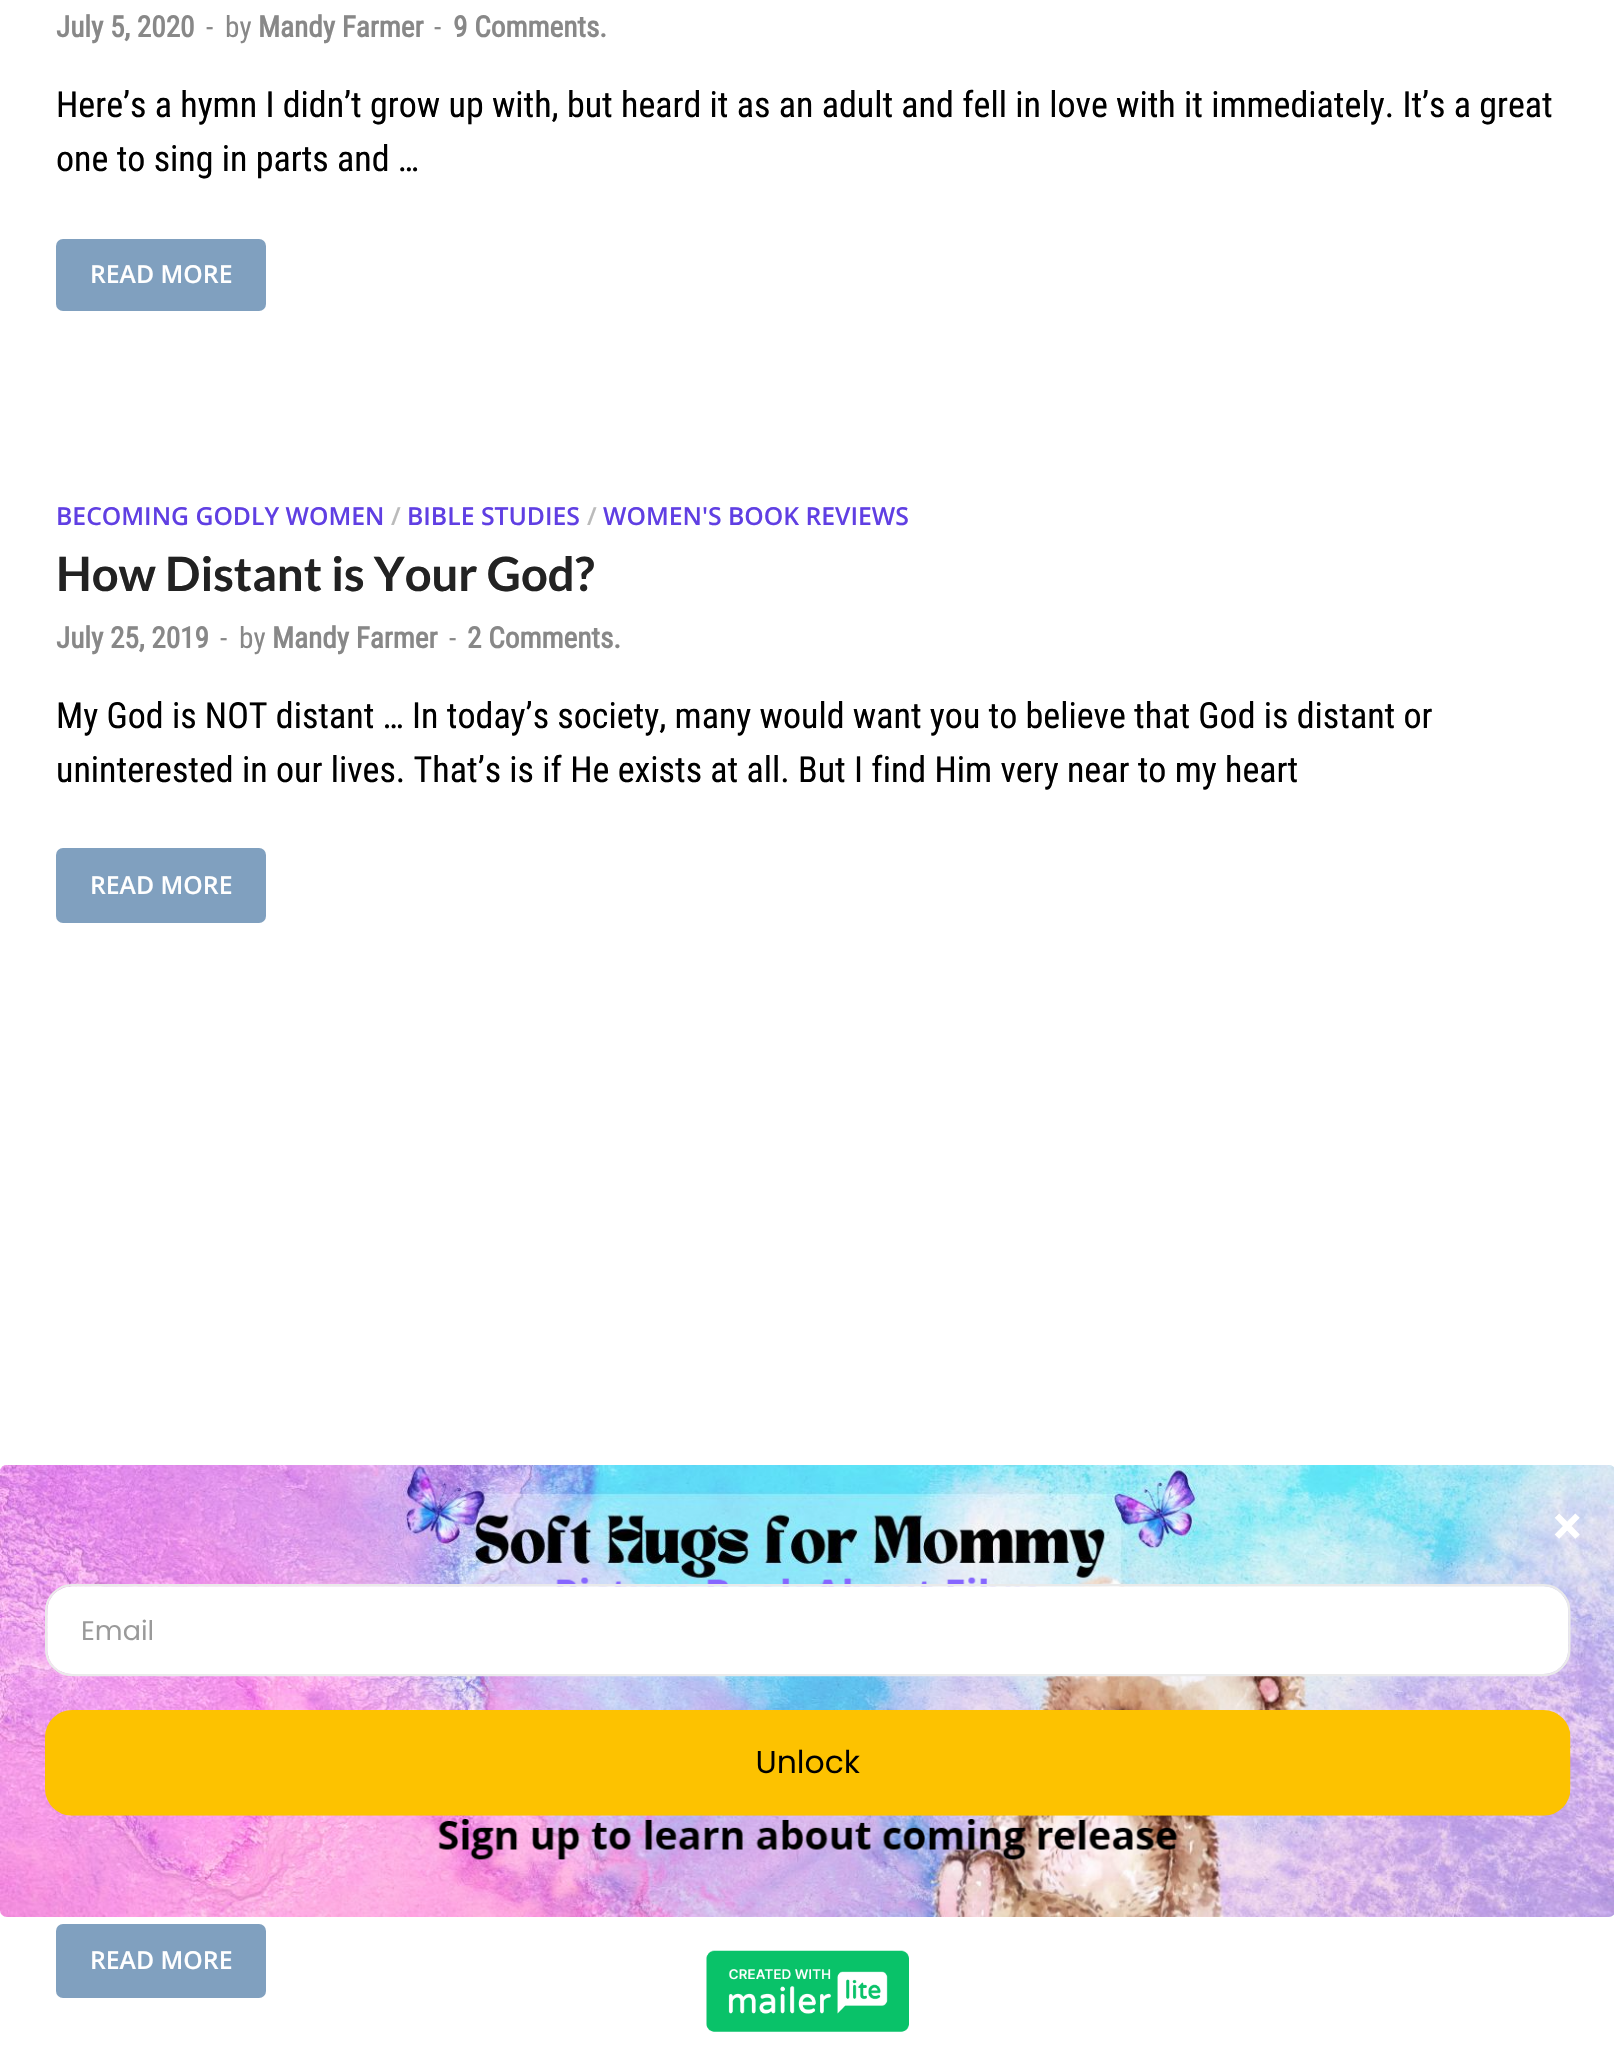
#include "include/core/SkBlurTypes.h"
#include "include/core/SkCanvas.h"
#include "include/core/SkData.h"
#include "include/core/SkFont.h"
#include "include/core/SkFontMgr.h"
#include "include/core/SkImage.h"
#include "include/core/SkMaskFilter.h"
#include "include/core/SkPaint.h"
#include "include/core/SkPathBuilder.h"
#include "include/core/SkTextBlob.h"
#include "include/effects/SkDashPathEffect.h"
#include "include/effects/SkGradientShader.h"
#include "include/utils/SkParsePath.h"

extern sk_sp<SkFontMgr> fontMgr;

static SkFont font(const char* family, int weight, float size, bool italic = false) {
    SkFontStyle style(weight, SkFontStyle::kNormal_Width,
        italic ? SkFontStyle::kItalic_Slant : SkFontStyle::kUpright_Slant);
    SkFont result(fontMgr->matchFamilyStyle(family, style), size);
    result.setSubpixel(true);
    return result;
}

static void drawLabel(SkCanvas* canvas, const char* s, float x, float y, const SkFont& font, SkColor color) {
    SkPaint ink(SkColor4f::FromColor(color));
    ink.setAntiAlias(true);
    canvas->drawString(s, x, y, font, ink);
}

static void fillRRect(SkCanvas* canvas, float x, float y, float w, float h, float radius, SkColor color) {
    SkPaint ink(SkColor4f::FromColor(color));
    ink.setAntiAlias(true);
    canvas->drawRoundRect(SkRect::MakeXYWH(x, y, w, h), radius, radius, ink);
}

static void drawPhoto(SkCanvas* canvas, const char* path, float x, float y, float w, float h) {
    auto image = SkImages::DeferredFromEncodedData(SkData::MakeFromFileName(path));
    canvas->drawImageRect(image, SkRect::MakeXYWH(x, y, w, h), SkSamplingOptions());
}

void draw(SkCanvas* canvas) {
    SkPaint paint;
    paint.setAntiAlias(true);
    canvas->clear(0xFFFFFFFF);
    SkFont font1 = font("Roboto Condensed", 700, 29.25f);
    drawLabel(canvas, "July 5, 2020", 56, 37, font1, 0xFF888888);
    SkFont font2 = font("Roboto Condensed", 400, 29.25f);
    drawLabel(canvas, "-", 206, 37, font2, 0xFF888888);
    drawLabel(canvas, "by", 225, 37, font2, 0xFF888888);
    drawLabel(canvas, "Mandy Farmer", 258, 37, font1, 0xFF888888);
    drawLabel(canvas, "-", 434, 37, font2, 0xFF888888);
    drawLabel(canvas, "9 Comments.", 453, 37, font1, 0xFF888888);
    SkFont font3 = font("Roboto Condensed", 400, 36);
    drawLabel(canvas, "Here’s a hymn I didn’t grow up with, but heard it as an adult and fell in love with it immediately. It’s a great", 56, 117, font3, 0xFF000000);
    drawLabel(canvas, "one to sing in parts and …", 56, 171, font3, 0xFF000000);
    fillRRect(canvas, 56, 239, 210, 72, 7, 0xFF80A0BF);
    SkFont font4 = font("Open Sans", 600, 24.75f);
    drawLabel(canvas, "READ MORE", 90, 283, font4, 0xFFFFFFFF);
    drawLabel(canvas, "BECOMING GODLY WOMEN", 56, 525, font4, 0xFF603FE3);
    drawLabel(canvas, "/", 391, 525, font4, 0xFFBBBBBB);
    drawLabel(canvas, "BIBLE STUDIES", 407, 525, font4, 0xFF603FE3);
    drawLabel(canvas, "/", 587, 525, font4, 0xFFBBBBBB);
    drawLabel(canvas, "WOMEN'S BOOK REVIEWS", 603, 525, font4, 0xFF603FE3);
    SkFont font5 = font("Lato", 700, 47.25f);
    drawLabel(canvas, "How Distant is Your God?", 56, 591, font5, 0xFF222222);
    drawLabel(canvas, "July 25, 2019", 56, 648, font1, 0xFF888888);
    drawLabel(canvas, "-", 220, 648, font2, 0xFF888888);
    drawLabel(canvas, "by", 239, 648, font2, 0xFF888888);
    drawLabel(canvas, "Mandy Farmer", 272, 648, font1, 0xFF888888);
    drawLabel(canvas, "-", 449, 648, font2, 0xFF888888);
    drawLabel(canvas, "2 Comments.", 467, 648, font1, 0xFF888888);
    drawLabel(canvas, "My God is NOT distant … In today’s society, many would want you to believe that God is distant or", 56, 728, font3, 0xFF000000);
    drawLabel(canvas, "uninterested in our lives. That’s is if He exists at all. But I find Him very near to my heart", 56, 782, font3, 0xFF000000);
    fillRRect(canvas, 56, 848, 210, 75, 7, 0xFF80A0BF);
    drawLabel(canvas, "READ MORE", 90, 894, font4, 0xFFFFFFFF);
    fillRRect(canvas, 56, 1924, 210, 74, 7, 0xFF80A0BF);
    drawLabel(canvas, "READ MORE", 90, 1969, font4, 0xFFFFFFFF);
    drawPhoto(canvas, "assets/img1.png", 0, 1465, 1614, 567);
}
